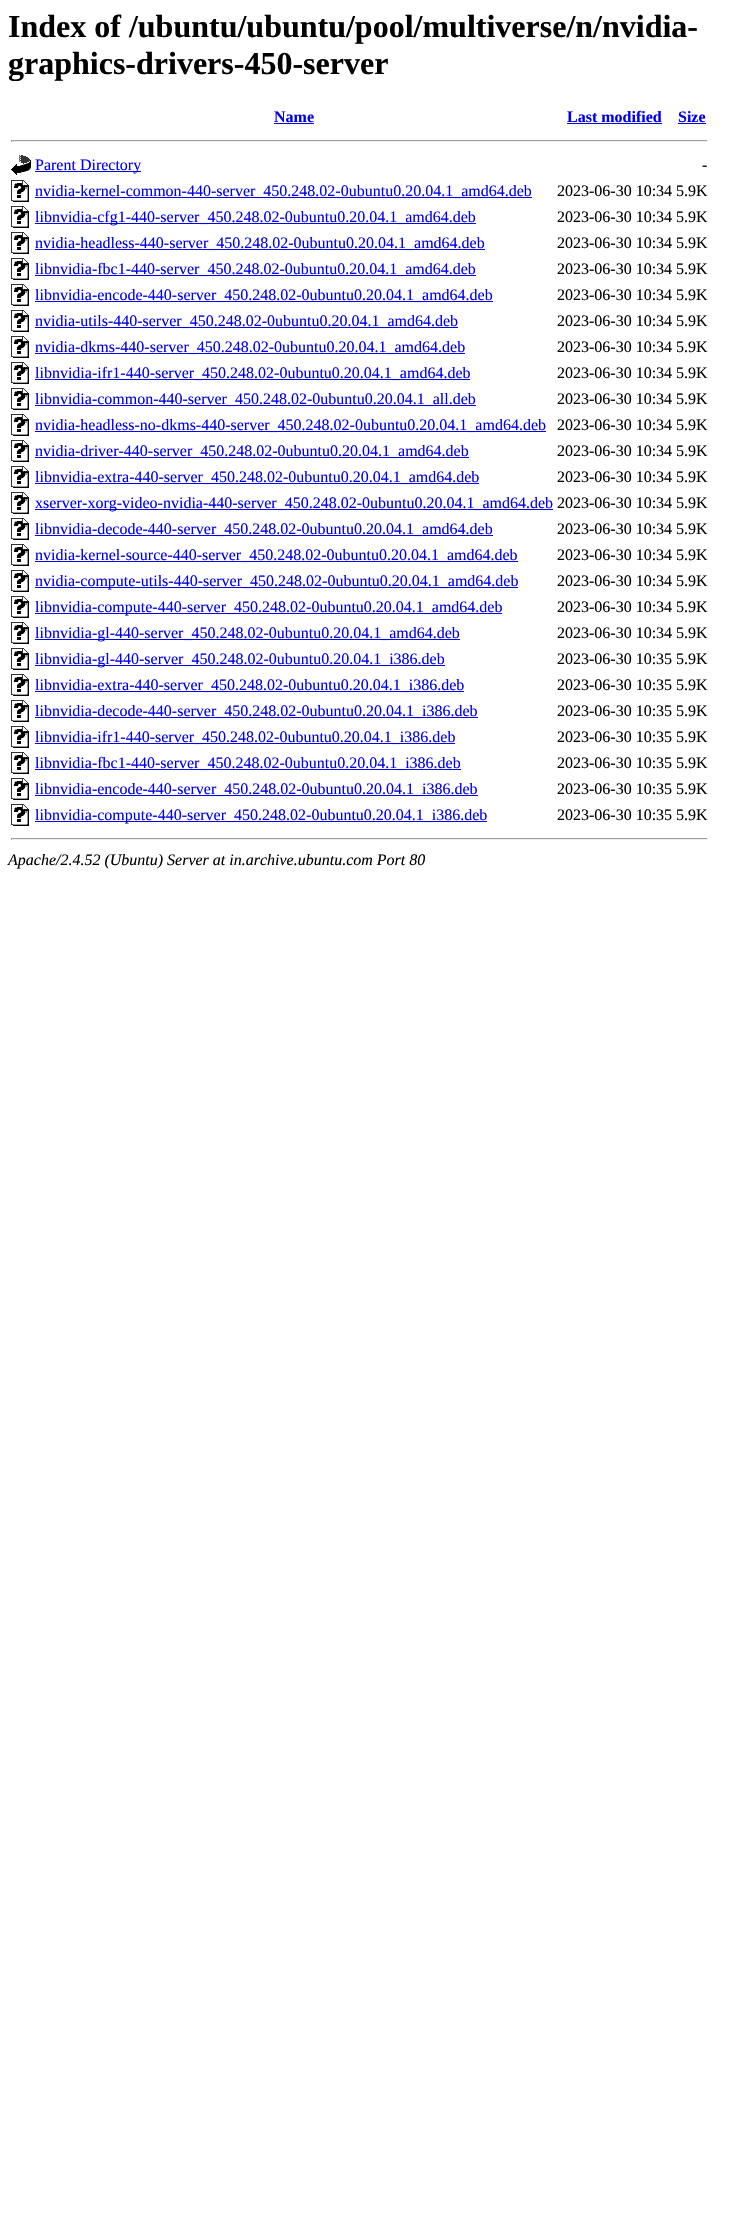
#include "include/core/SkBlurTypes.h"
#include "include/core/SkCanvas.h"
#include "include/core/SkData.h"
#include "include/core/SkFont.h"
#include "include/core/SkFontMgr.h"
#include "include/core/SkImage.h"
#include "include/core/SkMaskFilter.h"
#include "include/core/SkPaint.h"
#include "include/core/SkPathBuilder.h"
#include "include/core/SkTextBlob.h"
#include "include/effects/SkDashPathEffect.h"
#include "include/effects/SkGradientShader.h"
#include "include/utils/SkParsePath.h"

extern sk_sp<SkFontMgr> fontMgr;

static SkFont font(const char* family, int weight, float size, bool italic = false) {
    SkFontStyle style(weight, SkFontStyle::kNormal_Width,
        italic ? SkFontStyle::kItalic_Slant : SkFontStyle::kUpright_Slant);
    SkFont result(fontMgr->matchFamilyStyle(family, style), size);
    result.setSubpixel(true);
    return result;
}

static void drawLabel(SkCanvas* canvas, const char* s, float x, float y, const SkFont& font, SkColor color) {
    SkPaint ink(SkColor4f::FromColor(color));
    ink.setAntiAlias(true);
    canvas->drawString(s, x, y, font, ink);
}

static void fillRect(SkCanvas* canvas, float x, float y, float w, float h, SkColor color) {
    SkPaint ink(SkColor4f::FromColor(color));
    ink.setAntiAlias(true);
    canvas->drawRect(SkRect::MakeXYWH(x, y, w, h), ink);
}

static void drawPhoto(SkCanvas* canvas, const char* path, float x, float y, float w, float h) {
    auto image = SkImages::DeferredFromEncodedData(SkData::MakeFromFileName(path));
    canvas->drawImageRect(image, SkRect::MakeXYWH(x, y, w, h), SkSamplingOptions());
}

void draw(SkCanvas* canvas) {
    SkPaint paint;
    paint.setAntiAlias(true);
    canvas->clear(0xFFFFFFFF);
    SkFont font1 = font("Liberation Serif", 700, 32);
    drawLabel(canvas, "Index of /ubuntu/ubuntu/pool/multiverse/n/nvidia-", 8, 37, font1, 0xFF000000);
    drawLabel(canvas, "graphics-drivers-450-server", 8, 74, font1, 0xFF000000);
    SkFont font2 = font("Liberation Serif", 700, 16);
    drawLabel(canvas, "Name", 274, 122, font2, 0xFF0000EE);
    fillRect(canvas, 274, 123, 40, 1, 0xFF0000EE);
    drawLabel(canvas, "Last modified", 567, 122, font2, 0xFF0000EE);
    fillRect(canvas, 567, 123, 95, 1, 0xFF0000EE);
    drawLabel(canvas, "Size", 678, 122, font2, 0xFF0000EE);
    fillRect(canvas, 678, 123, 28, 1, 0xFF0000EE);
    fillRect(canvas, 11, 140, 697, 1, 0xFF9F9F9F);
    fillRect(canvas, 707, 140, 1, 2, 0xFFEEEEEE);
    fillRect(canvas, 11, 141, 697, 1, 0xFFEEEEEE);
    fillRect(canvas, 11, 140, 1, 2, 0xFF9F9F9F);
    drawPhoto(canvas, "assets/img1.png", 11, 155, 20, 20);
    fillRect(canvas, 35, 171, 106, 1, 0xFF0000EE);
    SkFont font3 = font("Liberation Serif", 400, 16);
    drawLabel(canvas, "Parent Directory", 35, 170, font3, 0xFF0000EE);
    drawLabel(canvas, "-", 702, 170, font3, 0xFF000000);
    drawPhoto(canvas, "assets/img2.png", 11, 180, 18, 22);
    fillRect(canvas, 35, 197, 497, 1, 0xFF0000EE);
    drawLabel(canvas, "nvidia-kernel-common-440-server_450.248.02-0ubuntu0.20.04.1_amd64.deb", 35, 196, font3, 0xFF0000EE);
    drawLabel(canvas, "2023-06-30 10:34 5.9K", 557, 196, font3, 0xFF000000);
    drawPhoto(canvas, "assets/img2.png", 11, 206, 18, 22);
    fillRect(canvas, 35, 223, 441, 1, 0xFF0000EE);
    drawLabel(canvas, "libnvidia-cfg1-440-server_450.248.02-0ubuntu0.20.04.1_amd64.deb", 35, 222, font3, 0xFF0000EE);
    drawLabel(canvas, "2023-06-30 10:34 5.9K", 557, 222, font3, 0xFF000000);
    drawPhoto(canvas, "assets/img2.png", 11, 232, 18, 22);
    fillRect(canvas, 35, 249, 450, 1, 0xFF0000EE);
    drawLabel(canvas, "nvidia-headless-440-server_450.248.02-0ubuntu0.20.04.1_amd64.deb", 35, 248, font3, 0xFF0000EE);
    drawLabel(canvas, "2023-06-30 10:34 5.9K", 557, 248, font3, 0xFF000000);
    drawPhoto(canvas, "assets/img2.png", 11, 258, 18, 22);
    fillRect(canvas, 35, 275, 441, 1, 0xFF0000EE);
    drawLabel(canvas, "libnvidia-fbc1-440-server_450.248.02-0ubuntu0.20.04.1_amd64.deb", 35, 274, font3, 0xFF0000EE);
    drawLabel(canvas, "2023-06-30 10:34 5.9K", 557, 274, font3, 0xFF000000);
    drawPhoto(canvas, "assets/img2.png", 11, 284, 18, 22);
    fillRect(canvas, 35, 301, 458, 1, 0xFF0000EE);
    drawLabel(canvas, "libnvidia-encode-440-server_450.248.02-0ubuntu0.20.04.1_amd64.deb", 35, 300, font3, 0xFF0000EE);
    drawLabel(canvas, "2023-06-30 10:34 5.9K", 557, 300, font3, 0xFF000000);
    drawPhoto(canvas, "assets/img2.png", 11, 310, 18, 22);
    fillRect(canvas, 35, 327, 423, 1, 0xFF0000EE);
    drawLabel(canvas, "nvidia-utils-440-server_450.248.02-0ubuntu0.20.04.1_amd64.deb", 35, 326, font3, 0xFF0000EE);
    drawLabel(canvas, "2023-06-30 10:34 5.9K", 557, 326, font3, 0xFF000000);
    drawPhoto(canvas, "assets/img2.png", 11, 336, 18, 22);
    fillRect(canvas, 35, 353, 430, 1, 0xFF0000EE);
    drawLabel(canvas, "nvidia-dkms-440-server_450.248.02-0ubuntu0.20.04.1_amd64.deb", 35, 352, font3, 0xFF0000EE);
    drawLabel(canvas, "2023-06-30 10:34 5.9K", 557, 352, font3, 0xFF000000);
    drawPhoto(canvas, "assets/img2.png", 11, 362, 18, 22);
    fillRect(canvas, 35, 379, 435, 1, 0xFF0000EE);
    drawLabel(canvas, "libnvidia-ifr1-440-server_450.248.02-0ubuntu0.20.04.1_amd64.deb", 35, 378, font3, 0xFF0000EE);
    drawLabel(canvas, "2023-06-30 10:34 5.9K", 557, 378, font3, 0xFF000000);
    drawPhoto(canvas, "assets/img2.png", 11, 388, 18, 22);
    fillRect(canvas, 35, 405, 441, 1, 0xFF0000EE);
    drawLabel(canvas, "libnvidia-common-440-server_450.248.02-0ubuntu0.20.04.1_all.deb", 35, 404, font3, 0xFF0000EE);
    drawLabel(canvas, "2023-06-30 10:34 5.9K", 557, 404, font3, 0xFF000000);
    drawPhoto(canvas, "assets/img2.png", 11, 414, 18, 22);
    fillRect(canvas, 35, 431, 511, 1, 0xFF0000EE);
    drawLabel(canvas, "nvidia-headless-no-dkms-440-server_450.248.02-0ubuntu0.20.04.1_amd64.deb", 35, 430, font3, 0xFF0000EE);
    drawLabel(canvas, "2023-06-30 10:34 5.9K", 557, 430, font3, 0xFF000000);
    drawPhoto(canvas, "assets/img2.png", 11, 440, 18, 22);
    fillRect(canvas, 35, 457, 434, 1, 0xFF0000EE);
    drawLabel(canvas, "nvidia-driver-440-server_450.248.02-0ubuntu0.20.04.1_amd64.deb", 35, 456, font3, 0xFF0000EE);
    drawLabel(canvas, "2023-06-30 10:34 5.9K", 557, 456, font3, 0xFF000000);
    drawPhoto(canvas, "assets/img2.png", 11, 466, 18, 22);
    fillRect(canvas, 35, 483, 444, 1, 0xFF0000EE);
    drawLabel(canvas, "libnvidia-extra-440-server_450.248.02-0ubuntu0.20.04.1_amd64.deb", 35, 482, font3, 0xFF0000EE);
    drawLabel(canvas, "2023-06-30 10:34 5.9K", 557, 482, font3, 0xFF000000);
    drawPhoto(canvas, "assets/img2.png", 11, 492, 18, 22);
    fillRect(canvas, 35, 509, 518, 1, 0xFF0000EE);
    drawLabel(canvas, "xserver-xorg-video-nvidia-440-server_450.248.02-0ubuntu0.20.04.1_amd64.deb", 35, 508, font3, 0xFF0000EE);
    drawLabel(canvas, "2023-06-30 10:34 5.9K", 557, 508, font3, 0xFF000000);
    drawPhoto(canvas, "assets/img2.png", 11, 518, 18, 22);
    fillRect(canvas, 35, 535, 458, 1, 0xFF0000EE);
    drawLabel(canvas, "libnvidia-decode-440-server_450.248.02-0ubuntu0.20.04.1_amd64.deb", 35, 534, font3, 0xFF0000EE);
    drawLabel(canvas, "2023-06-30 10:34 5.9K", 557, 534, font3, 0xFF000000);
    drawPhoto(canvas, "assets/img2.png", 11, 544, 18, 22);
    fillRect(canvas, 35, 561, 483, 1, 0xFF0000EE);
    drawLabel(canvas, "nvidia-kernel-source-440-server_450.248.02-0ubuntu0.20.04.1_amd64.deb", 35, 560, font3, 0xFF0000EE);
    drawLabel(canvas, "2023-06-30 10:34 5.9K", 557, 560, font3, 0xFF000000);
    drawPhoto(canvas, "assets/img2.png", 11, 570, 18, 22);
    fillRect(canvas, 35, 587, 483, 1, 0xFF0000EE);
    drawLabel(canvas, "nvidia-compute-utils-440-server_450.248.02-0ubuntu0.20.04.1_amd64.deb", 35, 586, font3, 0xFF0000EE);
    drawLabel(canvas, "2023-06-30 10:34 5.9K", 557, 586, font3, 0xFF000000);
    drawPhoto(canvas, "assets/img2.png", 11, 596, 18, 22);
    fillRect(canvas, 35, 613, 467, 1, 0xFF0000EE);
    drawLabel(canvas, "libnvidia-compute-440-server_450.248.02-0ubuntu0.20.04.1_amd64.deb", 35, 612, font3, 0xFF0000EE);
    drawLabel(canvas, "2023-06-30 10:34 5.9K", 557, 612, font3, 0xFF000000);
    drawPhoto(canvas, "assets/img2.png", 11, 622, 18, 22);
    fillRect(canvas, 35, 639, 425, 1, 0xFF0000EE);
    drawLabel(canvas, "libnvidia-gl-440-server_450.248.02-0ubuntu0.20.04.1_amd64.deb", 35, 638, font3, 0xFF0000EE);
    drawLabel(canvas, "2023-06-30 10:34 5.9K", 557, 638, font3, 0xFF000000);
    drawPhoto(canvas, "assets/img2.png", 11, 648, 18, 22);
    fillRect(canvas, 35, 665, 410, 1, 0xFF0000EE);
    drawLabel(canvas, "libnvidia-gl-440-server_450.248.02-0ubuntu0.20.04.1_i386.deb", 35, 664, font3, 0xFF0000EE);
    drawLabel(canvas, "2023-06-30 10:35 5.9K", 557, 664, font3, 0xFF000000);
    drawPhoto(canvas, "assets/img2.png", 11, 674, 18, 22);
    fillRect(canvas, 35, 691, 429, 1, 0xFF0000EE);
    drawLabel(canvas, "libnvidia-extra-440-server_450.248.02-0ubuntu0.20.04.1_i386.deb", 35, 690, font3, 0xFF0000EE);
    drawLabel(canvas, "2023-06-30 10:35 5.9K", 557, 690, font3, 0xFF000000);
    drawPhoto(canvas, "assets/img2.png", 11, 700, 18, 22);
    fillRect(canvas, 35, 717, 443, 1, 0xFF0000EE);
    drawLabel(canvas, "libnvidia-decode-440-server_450.248.02-0ubuntu0.20.04.1_i386.deb", 35, 716, font3, 0xFF0000EE);
    drawLabel(canvas, "2023-06-30 10:35 5.9K", 557, 716, font3, 0xFF000000);
    drawPhoto(canvas, "assets/img2.png", 11, 726, 18, 22);
    fillRect(canvas, 35, 743, 420, 1, 0xFF0000EE);
    drawLabel(canvas, "libnvidia-ifr1-440-server_450.248.02-0ubuntu0.20.04.1_i386.deb", 35, 742, font3, 0xFF0000EE);
    drawLabel(canvas, "2023-06-30 10:35 5.9K", 557, 742, font3, 0xFF000000);
    drawPhoto(canvas, "assets/img2.png", 11, 752, 18, 22);
    fillRect(canvas, 35, 769, 426, 1, 0xFF0000EE);
    drawLabel(canvas, "libnvidia-fbc1-440-server_450.248.02-0ubuntu0.20.04.1_i386.deb", 35, 768, font3, 0xFF0000EE);
    drawLabel(canvas, "2023-06-30 10:35 5.9K", 557, 768, font3, 0xFF000000);
    drawPhoto(canvas, "assets/img2.png", 11, 778, 18, 22);
    fillRect(canvas, 35, 795, 443, 1, 0xFF0000EE);
    drawLabel(canvas, "libnvidia-encode-440-server_450.248.02-0ubuntu0.20.04.1_i386.deb", 35, 794, font3, 0xFF0000EE);
    drawLabel(canvas, "2023-06-30 10:35 5.9K", 557, 794, font3, 0xFF000000);
    drawPhoto(canvas, "assets/img2.png", 11, 804, 18, 22);
    fillRect(canvas, 35, 821, 452, 1, 0xFF0000EE);
    drawLabel(canvas, "libnvidia-compute-440-server_450.248.02-0ubuntu0.20.04.1_i386.deb", 35, 820, font3, 0xFF0000EE);
    drawLabel(canvas, "2023-06-30 10:35 5.9K", 557, 820, font3, 0xFF000000);
    fillRect(canvas, 11, 838, 697, 1, 0xFF9F9F9F);
    fillRect(canvas, 707, 838, 1, 2, 0xFFEEEEEE);
    fillRect(canvas, 11, 839, 697, 1, 0xFFEEEEEE);
    fillRect(canvas, 11, 838, 1, 2, 0xFF9F9F9F);
    SkFont font4 = font("Liberation Serif", 400, 16, true);
    drawLabel(canvas, "Apache/2.4.52 (Ubuntu) Server at in.archive.ubuntu.com Port 80", 8, 865, font4, 0xFF000000);
}
